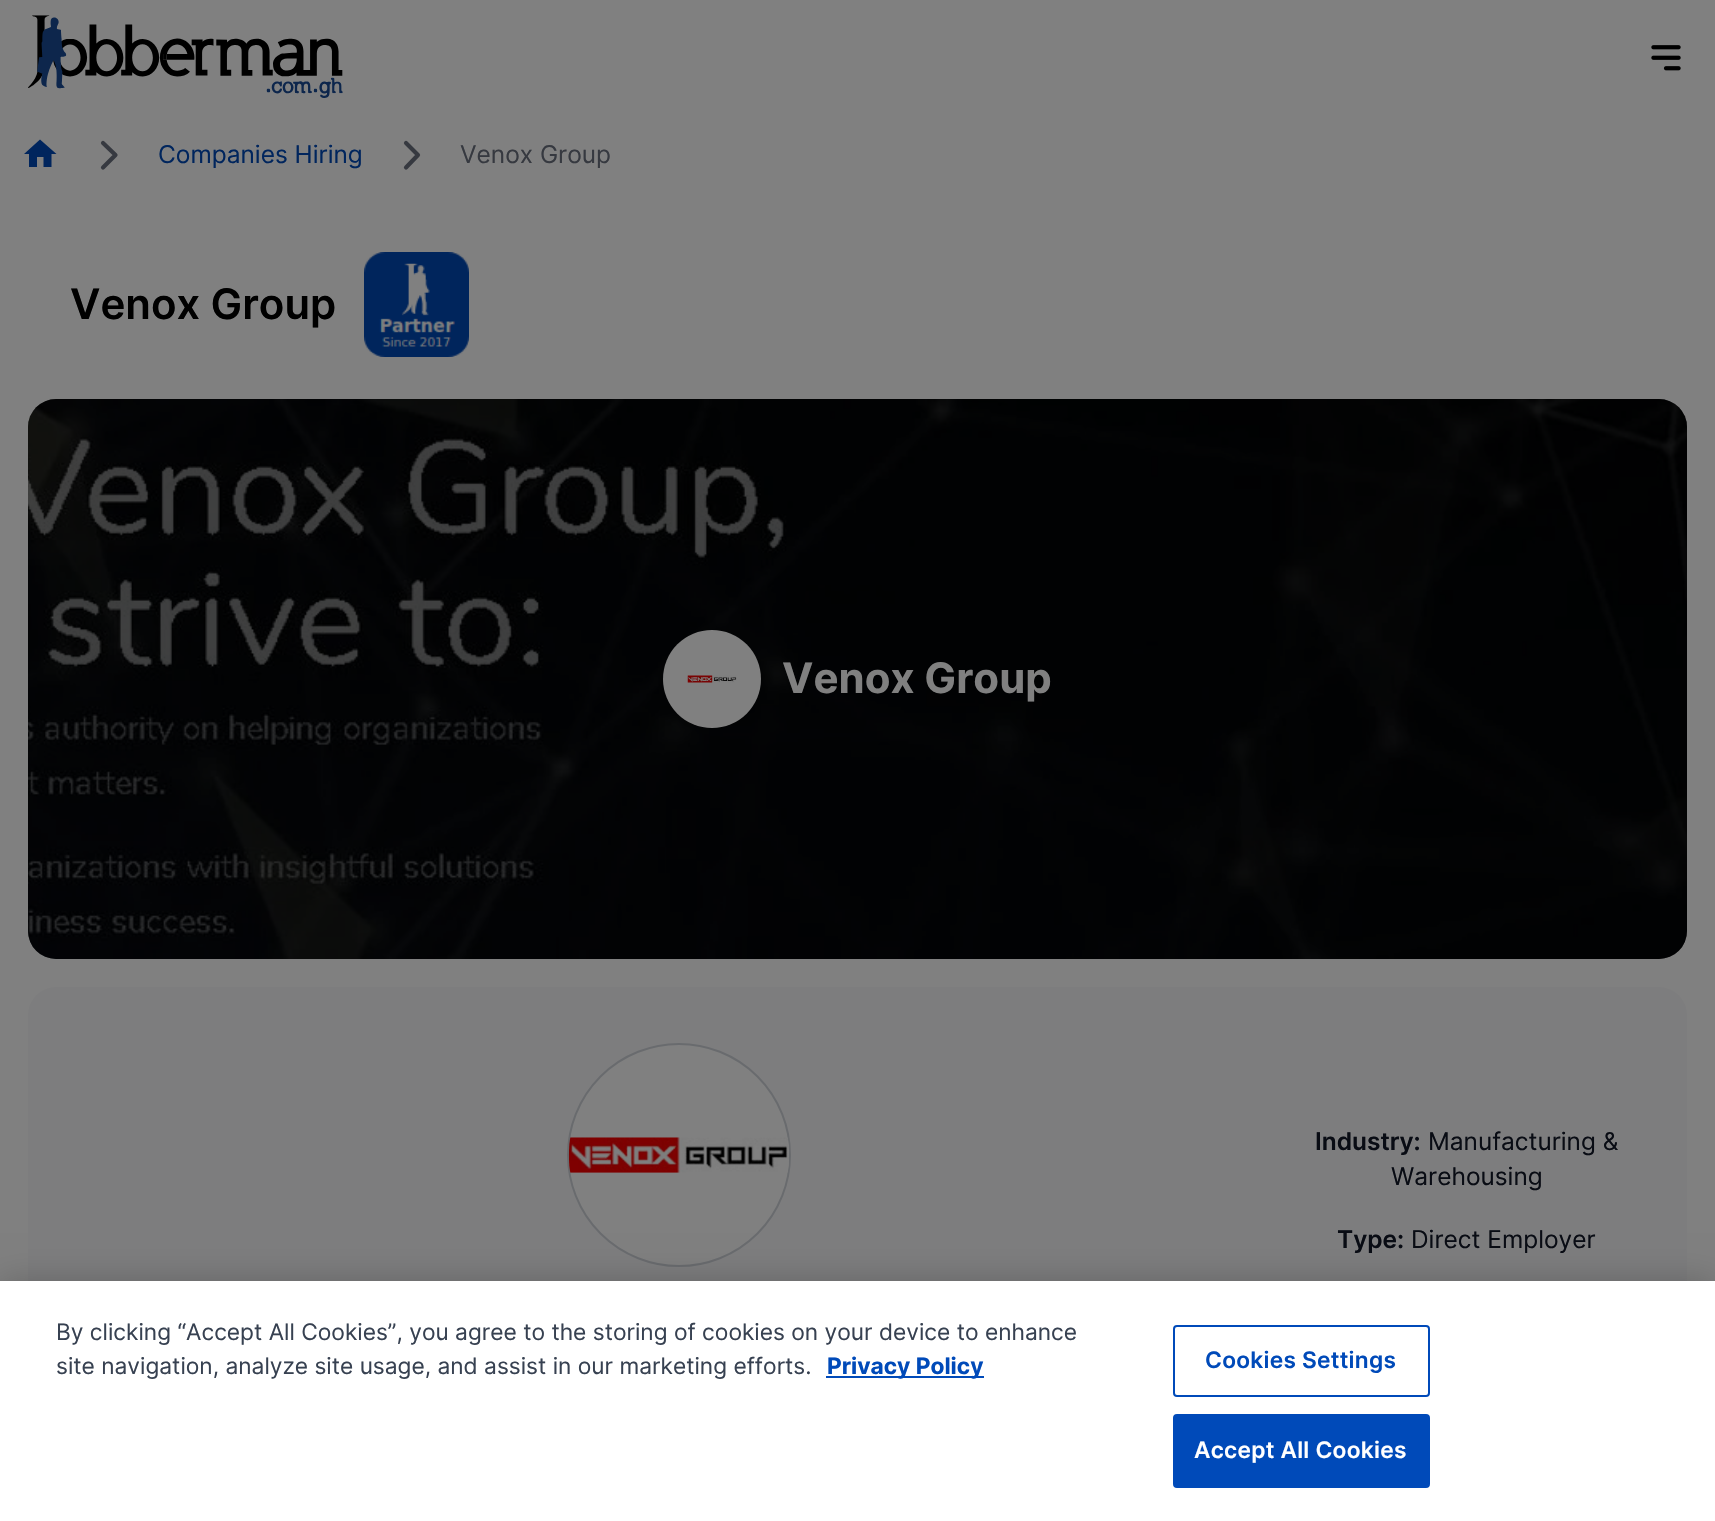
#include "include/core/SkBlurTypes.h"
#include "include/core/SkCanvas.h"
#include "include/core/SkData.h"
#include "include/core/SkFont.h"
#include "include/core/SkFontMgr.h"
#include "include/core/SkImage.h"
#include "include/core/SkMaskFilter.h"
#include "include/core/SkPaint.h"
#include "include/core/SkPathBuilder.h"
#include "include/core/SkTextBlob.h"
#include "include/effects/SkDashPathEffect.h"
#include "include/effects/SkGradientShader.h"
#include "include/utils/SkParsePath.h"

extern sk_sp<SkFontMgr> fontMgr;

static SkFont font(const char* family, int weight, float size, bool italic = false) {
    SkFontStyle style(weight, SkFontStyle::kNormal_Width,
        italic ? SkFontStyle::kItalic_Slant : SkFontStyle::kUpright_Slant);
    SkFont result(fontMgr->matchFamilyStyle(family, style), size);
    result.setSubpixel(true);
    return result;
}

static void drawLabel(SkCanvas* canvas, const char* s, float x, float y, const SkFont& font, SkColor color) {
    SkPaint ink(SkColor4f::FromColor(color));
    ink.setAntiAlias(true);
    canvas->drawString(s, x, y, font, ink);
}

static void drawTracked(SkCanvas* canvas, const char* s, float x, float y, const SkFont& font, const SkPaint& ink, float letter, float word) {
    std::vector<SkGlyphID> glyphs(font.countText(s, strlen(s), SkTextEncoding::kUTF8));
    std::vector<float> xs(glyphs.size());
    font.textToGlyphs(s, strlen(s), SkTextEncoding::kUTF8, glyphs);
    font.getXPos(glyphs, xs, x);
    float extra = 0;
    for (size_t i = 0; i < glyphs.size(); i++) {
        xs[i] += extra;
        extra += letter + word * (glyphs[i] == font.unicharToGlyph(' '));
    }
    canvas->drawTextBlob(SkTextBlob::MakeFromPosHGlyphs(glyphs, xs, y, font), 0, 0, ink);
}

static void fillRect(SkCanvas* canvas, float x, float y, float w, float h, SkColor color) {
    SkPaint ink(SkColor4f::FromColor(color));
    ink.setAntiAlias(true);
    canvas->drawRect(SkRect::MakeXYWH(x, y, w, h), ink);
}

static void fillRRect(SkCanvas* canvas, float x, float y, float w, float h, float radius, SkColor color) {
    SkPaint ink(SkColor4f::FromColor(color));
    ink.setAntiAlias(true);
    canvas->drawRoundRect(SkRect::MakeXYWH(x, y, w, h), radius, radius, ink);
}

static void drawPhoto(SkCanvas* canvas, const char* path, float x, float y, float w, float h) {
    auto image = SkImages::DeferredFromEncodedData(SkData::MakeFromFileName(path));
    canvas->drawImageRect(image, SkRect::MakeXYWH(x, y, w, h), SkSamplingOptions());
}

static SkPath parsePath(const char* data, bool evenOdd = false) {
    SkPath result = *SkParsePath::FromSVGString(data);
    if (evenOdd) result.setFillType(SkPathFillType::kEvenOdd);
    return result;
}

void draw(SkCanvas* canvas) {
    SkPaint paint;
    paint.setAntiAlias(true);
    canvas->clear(0xFF808080);
    drawPhoto(canvas, "assets/img1.png", 28, 15, 315, 83);
    drawPhoto(canvas, "assets/img2.png", 1651, 45, 30, 26);
    paint.setColor(0xFF00255D);
    canvas->drawPath(parsePath("M37 167V157H43.5V167H51.5V154H56.5L40 139.5L24 154H29V167Z"), paint);
    paint.setStroke(true);
    paint.setStrokeWidth(4.2f);
    paint.setStrokeCap(SkPaint::kRound_Cap);
    paint.setStrokeJoin(SkPaint::kRound_Join);
    paint.setColor(0xFF363940);
    canvas->drawPath(parsePath("M103 143L115.5 155L103 167.5"), paint);
    SkFont font1 = font("Inter", 400, 24.5f);
    drawLabel(canvas, "Companies Hiring", 158, 163, font1, 0xFF00255D);
    canvas->drawPath(parsePath("M406 143L418 155L406 167.5"), paint);
    drawLabel(canvas, "Venox Group", 460, 163, font1, 0xFF363940);
    SkFont font2 = font("Inter", 600, 42);
    drawLabel(canvas, "Venox Group", 70, 319, font2, 0xFF000000);
    drawPhoto(canvas, "assets/img3.png", 364, 252, 105, 105);
    drawPhoto(canvas, "assets/img4.png", 28, 399, 1659, 560);
    fillRRect(canvas, 28, 399, 1659, 560, 28, 0x80000000);
    paint.setStroke(false);
    paint.setColor(0xFF808080);
    canvas->drawCircle(712, 679, 49, paint);
    drawPhoto(canvas, "assets/img5.png", 687, 675, 50, 8);
    SkFont font3 = font("Inter", 700, 42);
    drawLabel(canvas, "Venox Group", 782, 693, font3, 0xFF808080);
    fillRRect(canvas, 28, 987, 1659, 504, 28, 0xFF7D7D7E);
    canvas->drawCircle(679, 1155, 111, paint);
    paint.setStroke(true);
    paint.setStrokeWidth(2);
    paint.setStrokeCap(SkPaint::kButt_Cap);
    paint.setStrokeJoin(SkPaint::kMiter_Join);
    paint.setColor(0xFF696B6E);
    canvas->drawCircle(679, 1155, 111, paint);
    drawPhoto(canvas, "assets/img6.png", 568, 1137, 221, 36);
    SkFont font4 = font("Inter", 600, 24.5f);
    drawLabel(canvas, "Industry:", 1315, 1150, font4, 0xFF090C14);
    drawLabel(canvas, "Manufacturing &", 1428, 1150, font1, 0xFF090C14);
    drawLabel(canvas, "Warehousing", 1391, 1185, font1, 0xFF090C14);
    drawLabel(canvas, "Type:", 1337, 1248, font4, 0xFF090C14);
    drawLabel(canvas, "Direct Employer", 1411, 1248, font1, 0xFF090C14);
    paint.setStroke(false);
    paint.setColor(0x33000000);
    paint.setMaskFilter(SkMaskFilter::MakeBlur(kNormal_SkBlurStyle, 16));
    canvas->drawRect(SkRect::MakeXYWH(0, 1281, 1715, 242), paint);
    paint.setMaskFilter(nullptr);
    fillRect(canvas, 0, 1281, 1715, 240, 0xFFFFFFFF);
    SkFont font5 = font("Inter", 400, 22.75f);
    drawLabel(canvas, "By clicking “Accept All Cookies”, you agree to the storing of cookies on your device to enhance", 56, 1340, font5, 0xFF374151);
    drawLabel(canvas, "site navigation, analyze site usage, and assist in our marketing efforts.", 56, 1374, font5, 0xFF374151);
    fillRect(canvas, 826, 1376, 158, 2, 0xFF004AB9);
    SkFont font6 = font("Inter", 700, 22.75f);
    drawLabel(canvas, "Privacy Policy", 827, 1374, font6, 0xFF004AB9);
    paint.setStroke(true);
    paint.setColor(0xFF004AB9);
    canvas->drawRoundRect(SkRect::MakeXYWH(1174, 1326, 255, 70), 3, 3, paint);
    SkFont font7 = font("Inter", 600, 22.75f);
    paint.setStroke(false);
    drawTracked(canvas, "Cookies Settings", 1205, 1368, font7, paint, 0.25f, 0);
    canvas->drawRoundRect(SkRect::MakeXYWH(1174, 1415, 255, 72), 3, 3, paint);
    paint.setStroke(true);
    canvas->drawRoundRect(SkRect::MakeXYWH(1174, 1415, 255, 72), 3, 3, paint);
    paint.setStroke(false);
    paint.setColor(0xFFFFFFFF);
    drawTracked(canvas, "Accept All Cookies", 1194, 1458, font7, paint, 0.25f, 0);
}
